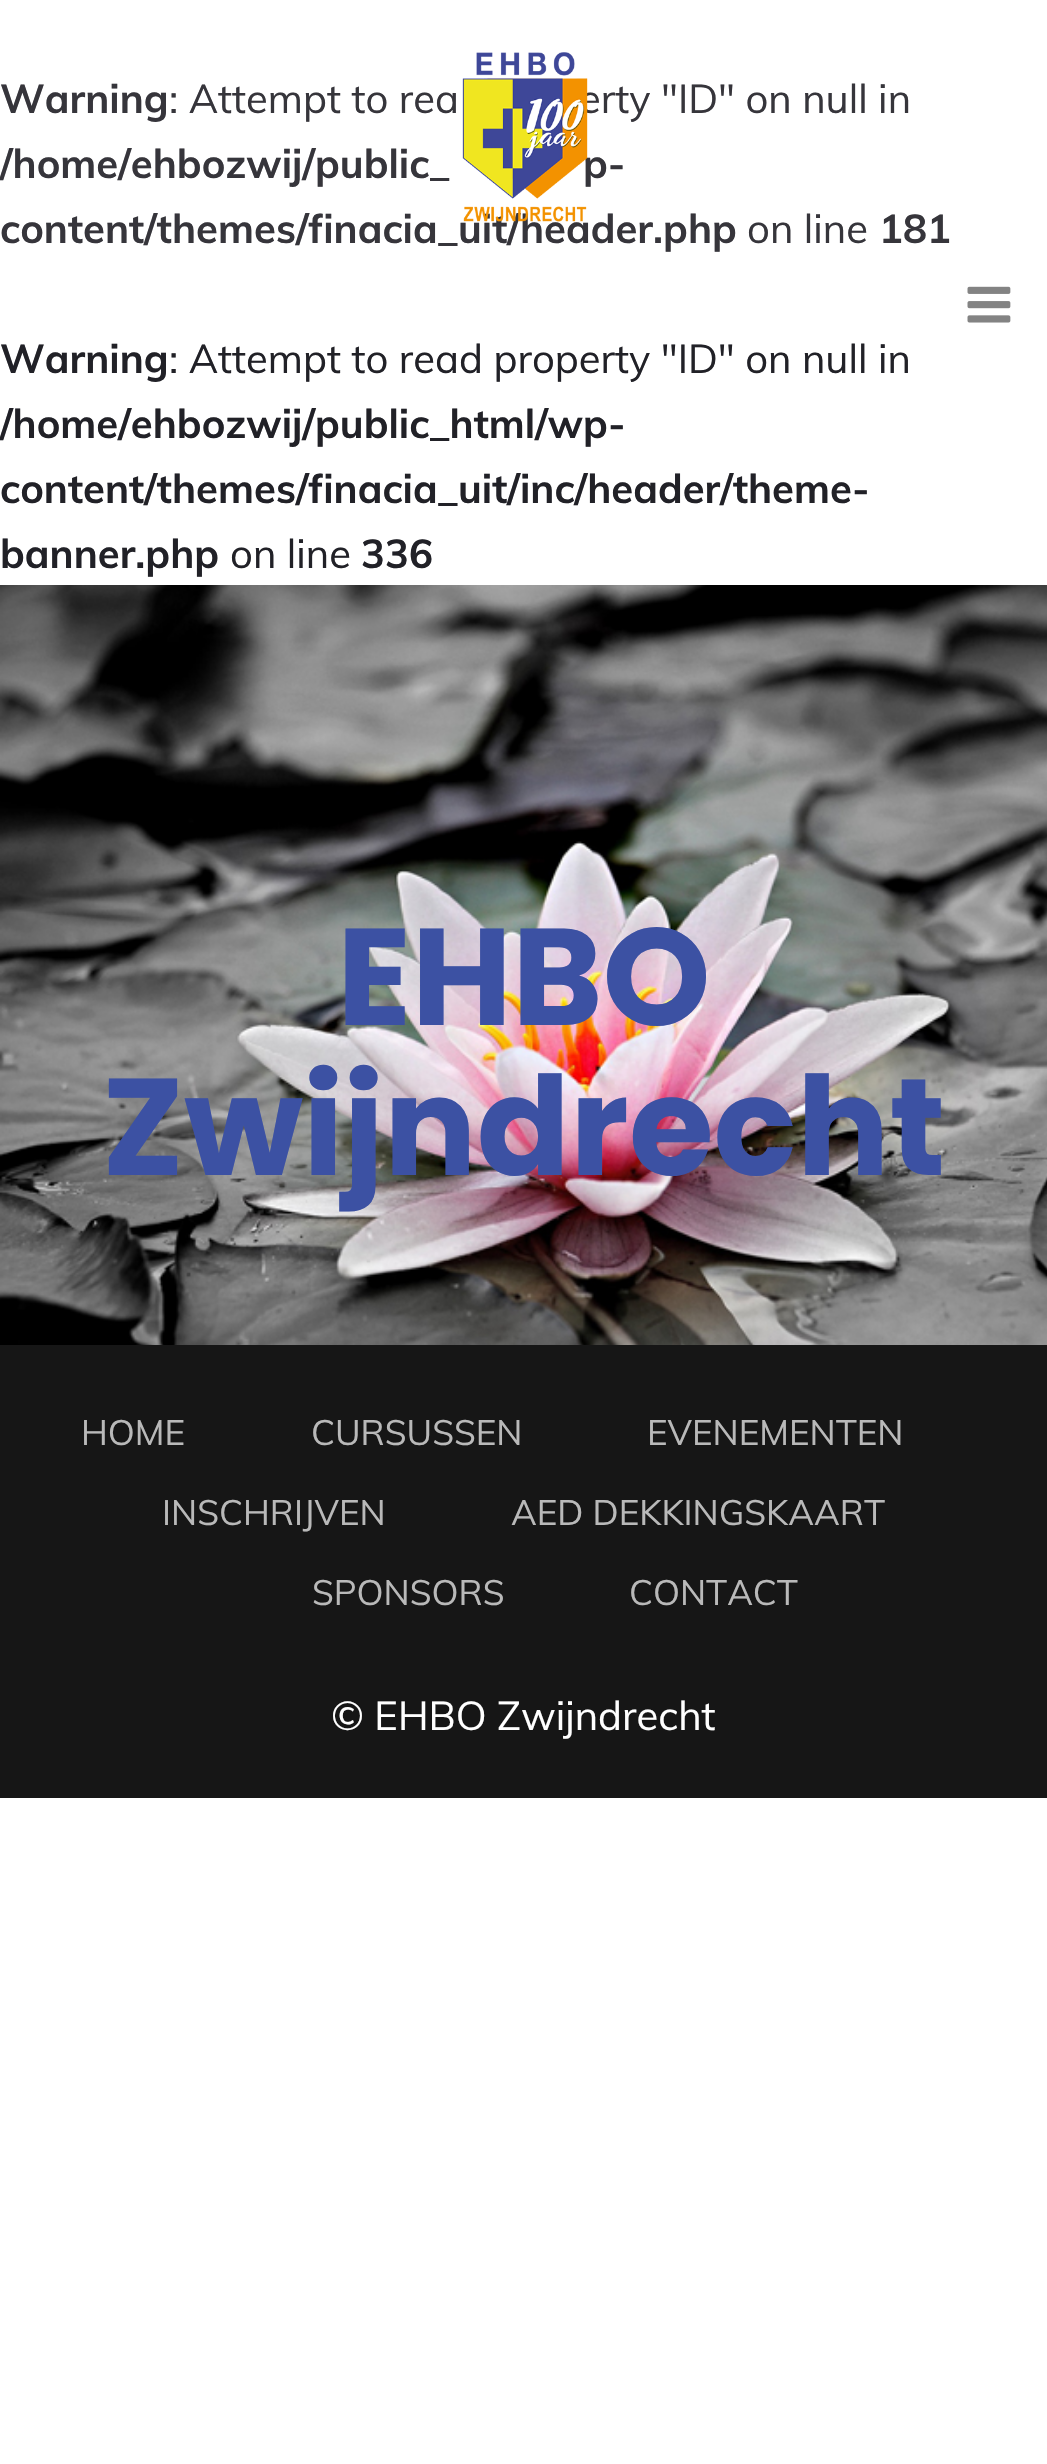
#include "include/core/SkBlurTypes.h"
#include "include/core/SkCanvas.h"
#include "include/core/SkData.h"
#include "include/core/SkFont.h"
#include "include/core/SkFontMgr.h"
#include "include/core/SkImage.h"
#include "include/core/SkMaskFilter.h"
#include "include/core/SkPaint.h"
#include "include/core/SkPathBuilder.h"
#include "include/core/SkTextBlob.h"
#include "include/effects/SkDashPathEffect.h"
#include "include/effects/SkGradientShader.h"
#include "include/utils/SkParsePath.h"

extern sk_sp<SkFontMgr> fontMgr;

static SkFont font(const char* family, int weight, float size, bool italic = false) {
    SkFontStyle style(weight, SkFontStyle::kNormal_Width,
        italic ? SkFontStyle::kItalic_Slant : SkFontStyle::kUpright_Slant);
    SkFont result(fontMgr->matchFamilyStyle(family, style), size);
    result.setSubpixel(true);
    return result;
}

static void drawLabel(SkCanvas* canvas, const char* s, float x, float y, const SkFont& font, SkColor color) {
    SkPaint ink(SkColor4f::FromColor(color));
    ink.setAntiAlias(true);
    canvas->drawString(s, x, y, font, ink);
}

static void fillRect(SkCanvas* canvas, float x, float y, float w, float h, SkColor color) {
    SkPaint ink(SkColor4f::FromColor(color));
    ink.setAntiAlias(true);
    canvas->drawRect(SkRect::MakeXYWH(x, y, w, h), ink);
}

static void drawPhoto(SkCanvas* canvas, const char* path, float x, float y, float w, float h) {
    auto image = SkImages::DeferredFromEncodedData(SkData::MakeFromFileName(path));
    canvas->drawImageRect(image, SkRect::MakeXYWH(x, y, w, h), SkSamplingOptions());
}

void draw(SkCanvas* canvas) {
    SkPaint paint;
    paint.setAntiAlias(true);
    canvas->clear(0xFFFFFFFF);
    SkFont font1 = font("Muli", 700, 40);
    drawLabel(canvas, "Warning", 0, 113, font1, 0xFF36353B);
    SkFont font2 = font("Muli", 400, 40);
    drawLabel(canvas, "erty \"ID\" on null in", 579, 113, font2, 0xFF36353B);
    drawLabel(canvas, "p-", 583, 178, font1, 0xFF36353B);
    drawLabel(canvas, "content/themes/finacia_uit/header.php", 0, 243, font1, 0xFF36353B);
    drawPhoto(canvas, "assets/img1.png", 462, 52, 126, 170);
    drawPhoto(canvas, "assets/img2.png", 967, 286, 44, 37);
    drawLabel(canvas, ": Attempt to rea", 169, 113, font2, 0xFF36353B);
    drawLabel(canvas, "/home/ehbozwij/public_", 0, 178, font1, 0xFF36353B);
    drawLabel(canvas, "on line", 747, 243, font2, 0xFF36353B);
    drawLabel(canvas, "181", 879, 243, font1, 0xFF36353B);
    drawLabel(canvas, "Warning", 0, 373, font1, 0xFF212127);
    drawLabel(canvas, ": Attempt to read property \"ID\" on null in", 169, 373, font2, 0xFF212127);
    drawLabel(canvas, "/home/ehbozwij/public_html/wp-", 0, 438, font1, 0xFF212127);
    drawLabel(canvas, "content/themes/finacia_uit/inc/header/theme-", 0, 503, font1, 0xFF212127);
    drawLabel(canvas, "banner.php", 0, 568, font1, 0xFF212127);
    drawLabel(canvas, "on line", 230, 568, font2, 0xFF212127);
    drawLabel(canvas, "336", 361, 568, font1, 0xFF212127);
    drawPhoto(canvas, "assets/img3.png", 0, 585, 1047, 760);
    SkFont font3 = font("Poppins", 700, 137.5f);
    drawLabel(canvas, "EHBO", 337, 1025, font3, 0xFF3C51A3);
    drawLabel(canvas, "Zwijndrecht", 102, 1175, font3, 0xFF3C51A3);
    fillRect(canvas, 0, 1345, 1047, 453, 0xFF161616);
    SkFont font4 = font("Muli", 400, 35);
    drawLabel(canvas, "HOME", 81, 1445, font4, 0xFFB9B9B9);
    drawLabel(canvas, "CURSUSSEN", 311, 1445, font4, 0xFFB9B9B9);
    drawLabel(canvas, "EVENEMENTEN", 647, 1445, font4, 0xFFB9B9B9);
    drawLabel(canvas, "INSCHRIJVEN", 162, 1525, font4, 0xFFB9B9B9);
    drawLabel(canvas, "AED DEKKINGSKAART", 511, 1525, font4, 0xFFB9B9B9);
    drawLabel(canvas, "SPONSORS", 312, 1605, font4, 0xFFB9B9B9);
    drawLabel(canvas, "CONTACT", 629, 1605, font4, 0xFFB9B9B9);
    drawLabel(canvas, "© EHBO Zwijndrecht", 331, 1730, font2, 0xFFFFFFFF);
}
